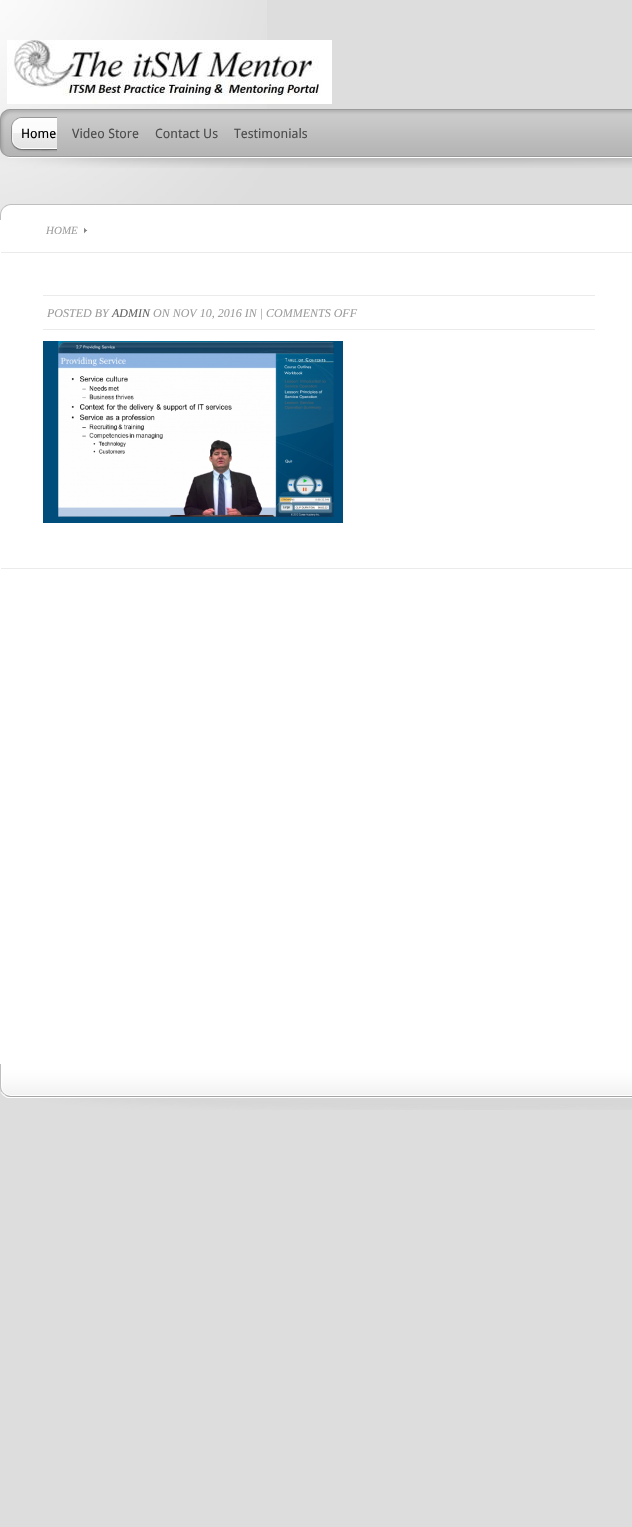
#include "include/core/SkBlurTypes.h"
#include "include/core/SkCanvas.h"
#include "include/core/SkData.h"
#include "include/core/SkFont.h"
#include "include/core/SkFontMgr.h"
#include "include/core/SkImage.h"
#include "include/core/SkMaskFilter.h"
#include "include/core/SkPaint.h"
#include "include/core/SkPathBuilder.h"
#include "include/core/SkTextBlob.h"
#include "include/effects/SkDashPathEffect.h"
#include "include/effects/SkGradientShader.h"
#include "include/utils/SkParsePath.h"

extern sk_sp<SkFontMgr> fontMgr;

static SkFont font(const char* family, int weight, float size, bool italic = false) {
    SkFontStyle style(weight, SkFontStyle::kNormal_Width,
        italic ? SkFontStyle::kItalic_Slant : SkFontStyle::kUpright_Slant);
    SkFont result(fontMgr->matchFamilyStyle(family, style), size);
    result.setSubpixel(true);
    return result;
}

static void drawLabel(SkCanvas* canvas, const char* s, float x, float y, const SkFont& font, SkColor color) {
    SkPaint ink(SkColor4f::FromColor(color));
    ink.setAntiAlias(true);
    canvas->drawString(s, x, y, font, ink);
}

static void fillRect(SkCanvas* canvas, float x, float y, float w, float h, SkColor color) {
    SkPaint ink(SkColor4f::FromColor(color));
    ink.setAntiAlias(true);
    canvas->drawRect(SkRect::MakeXYWH(x, y, w, h), ink);
}

static void drawPhoto(SkCanvas* canvas, const char* path, float x, float y, float w, float h) {
    auto image = SkImages::DeferredFromEncodedData(SkData::MakeFromFileName(path));
    canvas->drawImageRect(image, SkRect::MakeXYWH(x, y, w, h), SkSamplingOptions());
}

void draw(SkCanvas* canvas) {
    SkPaint paint;
    paint.setAntiAlias(true);
    canvas->clear(0xFFDDDDDD);
    drawPhoto(canvas, "assets/img1.png", 0, 0, 267, 215);
    drawPhoto(canvas, "assets/img2.png", 7, 40, 325, 64);
    drawPhoto(canvas, "assets/img3.png", 0, 109, 632, 59);
    drawPhoto(canvas, "assets/img4.png", 40, 150, 12, 1);
    drawPhoto(canvas, "assets/img5.png", 11, 117, 46, 35);
    SkFont font1 = font("Droid Sans", 400, 13);
    drawLabel(canvas, "Home", 21, 138, font1, 0xFF000000);
    drawLabel(canvas, "Video Store", 72, 138, font1, 0xFF4E4D4D);
    drawLabel(canvas, "Contact Us", 155, 138, font1, 0xFF4E4D4D);
    drawLabel(canvas, "Testimonials", 234, 138, font1, 0xFF4E4D4D);
    drawPhoto(canvas, "assets/img6.png", 0, 204, 632, 16);
    fillRect(canvas, 0, 220, 632, 844, 0xFFFFFFFF);
    fillRect(canvas, 1, 252, 631, 1, 0xFFEBEBEB);
    SkFont font2 = font("Liberation Serif", 400, 11, true);
    drawLabel(canvas, "HOME", 46, 234, font2, 0xFF9E9E9E);
    drawPhoto(canvas, "assets/img7.png", 84, 227, 4, 7);
    fillRect(canvas, 43, 295, 552, 1, 0xFFEBEBEB);
    fillRect(canvas, 43, 329, 552, 1, 0xFFEBEBEB);
    SkFont font3 = font("Liberation Serif", 400, 12, true);
    drawLabel(canvas, "POSTED BY", 47, 317, font3, 0xFF9E9E9E);
    drawLabel(canvas, "ADMIN", 112, 317, font3, 0xFF646464);
    drawLabel(canvas, "ON NOV 10, 2016 IN | COMMENTS OFF", 153, 317, font3, 0xFF9E9E9E);
    drawPhoto(canvas, "assets/img8.png", 43, 341, 300, 182);
    fillRect(canvas, 1, 568, 631, 1, 0xFFEBEBEB);
    drawPhoto(canvas, "assets/img9.png", 0, 1064, 632, 46);
}
